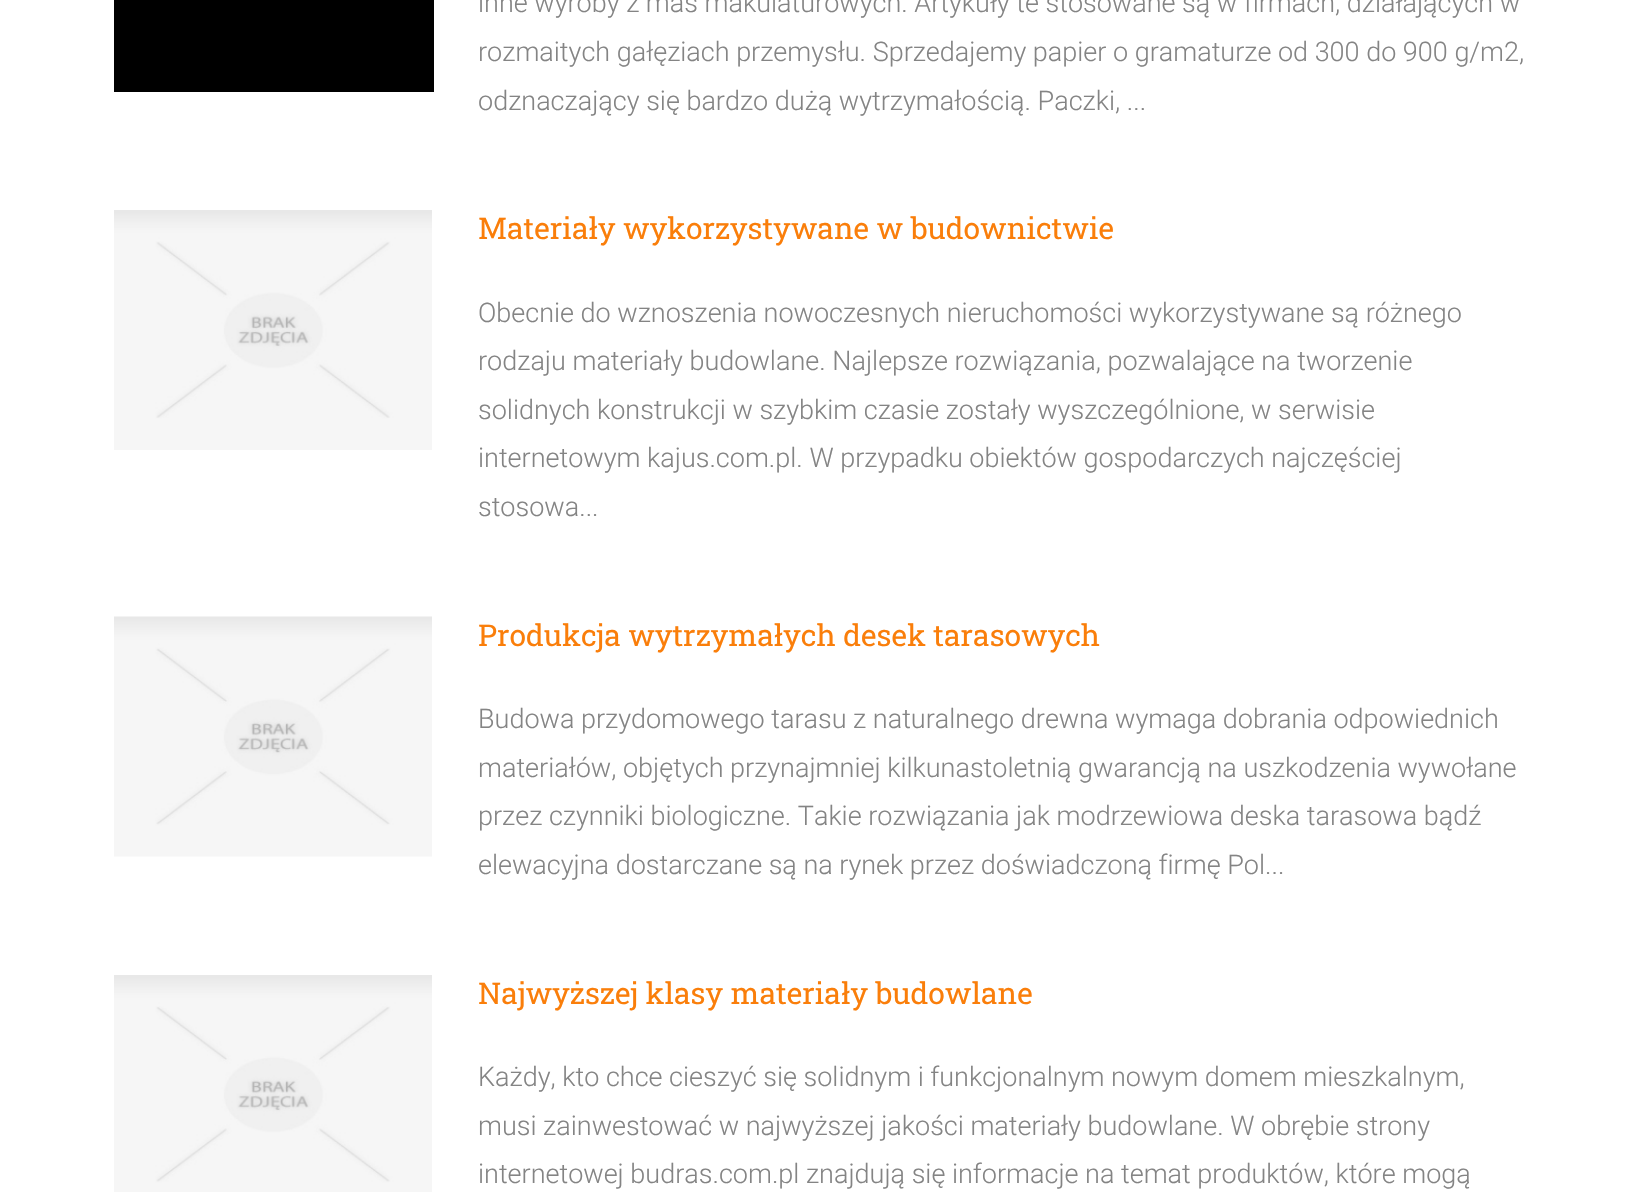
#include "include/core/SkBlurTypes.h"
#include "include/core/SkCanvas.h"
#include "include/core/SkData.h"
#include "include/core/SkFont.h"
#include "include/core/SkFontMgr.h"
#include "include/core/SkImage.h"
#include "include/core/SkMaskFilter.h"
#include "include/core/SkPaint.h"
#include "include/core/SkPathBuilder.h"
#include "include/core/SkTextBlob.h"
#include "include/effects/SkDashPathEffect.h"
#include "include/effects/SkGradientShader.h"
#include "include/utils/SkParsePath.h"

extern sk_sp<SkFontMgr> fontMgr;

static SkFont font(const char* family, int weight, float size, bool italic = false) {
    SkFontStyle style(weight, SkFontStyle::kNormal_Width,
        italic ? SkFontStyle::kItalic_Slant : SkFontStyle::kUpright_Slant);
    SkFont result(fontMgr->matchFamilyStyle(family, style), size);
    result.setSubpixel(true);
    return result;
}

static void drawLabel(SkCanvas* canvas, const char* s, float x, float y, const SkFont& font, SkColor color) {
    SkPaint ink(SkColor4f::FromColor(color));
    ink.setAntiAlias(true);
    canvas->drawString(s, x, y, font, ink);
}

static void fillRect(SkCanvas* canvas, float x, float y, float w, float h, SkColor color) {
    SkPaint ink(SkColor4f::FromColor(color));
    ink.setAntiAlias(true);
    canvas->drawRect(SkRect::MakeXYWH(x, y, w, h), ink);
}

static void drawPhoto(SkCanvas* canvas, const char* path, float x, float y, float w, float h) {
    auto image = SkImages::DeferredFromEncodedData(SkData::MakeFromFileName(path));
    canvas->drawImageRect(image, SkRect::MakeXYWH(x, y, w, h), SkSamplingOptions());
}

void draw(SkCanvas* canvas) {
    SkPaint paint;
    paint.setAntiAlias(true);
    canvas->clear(0xFFFFFFFF);
    fillRect(canvas, 114, 0, 320, 92, 0xFF000000);
    SkFont font1 = font("Roboto", 300, 27);
    drawLabel(canvas, "inne wyroby z mas makulaturowych. Artykuły te stosowane są w firmach, działających w", 478, 12, font1, 0xFF848484);
    drawLabel(canvas, "rozmaitych gałęziach przemysłu. Sprzedajemy papier o gramaturze od 300 do 900 g/m2,", 478, 61, font1, 0xFF848484);
    drawLabel(canvas, "odznaczający się bardzo dużą wytrzymałością. Paczki, ...", 478, 110, font1, 0xFF848484);
    drawPhoto(canvas, "assets/img1.png", 114, 210, 318, 240);
    SkFont font2 = font("Roboto Slab", 400, 30);
    drawLabel(canvas, "Materiały wykorzystywane w budownictwie", 478, 239, font2, 0xFFFA7E0A);
    drawLabel(canvas, "Obecnie do wznoszenia nowoczesnych nieruchomości wykorzystywane są różnego", 478, 322, font1, 0xFF848484);
    drawLabel(canvas, "rodzaju materiały budowlane. Najlepsze rozwiązania, pozwalające na tworzenie", 478, 370, font1, 0xFF848484);
    drawLabel(canvas, "solidnych konstrukcji w szybkim czasie zostały wyszczególnione, w serwisie", 478, 419, font1, 0xFF848484);
    drawLabel(canvas, "internetowym kajus.com.pl. W przypadku obiektów gospodarczych najczęściej", 478, 467, font1, 0xFF848484);
    drawLabel(canvas, "stosowa...", 478, 516, font1, 0xFF848484);
    drawPhoto(canvas, "assets/img2.png", 114, 616, 318, 241);
    drawLabel(canvas, "Produkcja wytrzymałych desek tarasowych", 478, 646, font2, 0xFFFA7E0A);
    drawLabel(canvas, "Budowa przydomowego tarasu z naturalnego drewna wymaga dobrania odpowiednich", 478, 728, font1, 0xFF848484);
    drawLabel(canvas, "materiałów, objętych przynajmniej kilkunastoletnią gwarancją na uszkodzenia wywołane", 478, 777, font1, 0xFF848484);
    drawLabel(canvas, "przez czynniki biologiczne. Takie rozwiązania jak modrzewiowa deska tarasowa bądź", 478, 825, font1, 0xFF848484);
    drawLabel(canvas, "elewacyjna dostarczane są na rynek przez doświadczoną firmę Pol...", 478, 874, font1, 0xFF848484);
    drawPhoto(canvas, "assets/img3.png", 114, 975, 318, 217);
    drawLabel(canvas, "Najwyższej klasy materiały budowlane", 478, 1004, font2, 0xFFFA7E0A);
    drawLabel(canvas, "Każdy, kto chce cieszyć się solidnym i funkcjonalnym nowym domem mieszkalnym,", 478, 1086, font1, 0xFF848484);
    drawLabel(canvas, "musi zainwestować w najwyższej jakości materiały budowlane. W obrębie strony", 478, 1135, font1, 0xFF848484);
    drawLabel(canvas, "internetowej budras.com.pl znajdują się informacje na temat produktów, które mogą", 478, 1183, font1, 0xFF848484);
}
